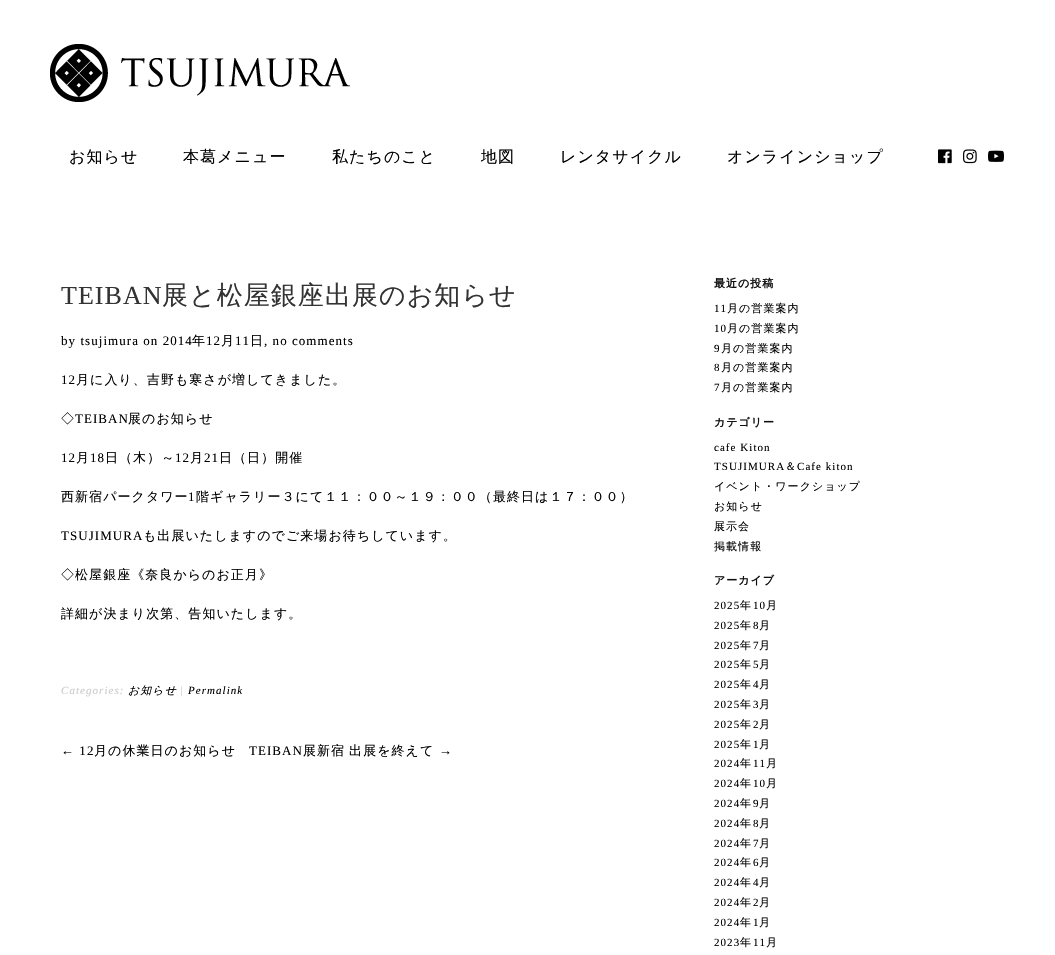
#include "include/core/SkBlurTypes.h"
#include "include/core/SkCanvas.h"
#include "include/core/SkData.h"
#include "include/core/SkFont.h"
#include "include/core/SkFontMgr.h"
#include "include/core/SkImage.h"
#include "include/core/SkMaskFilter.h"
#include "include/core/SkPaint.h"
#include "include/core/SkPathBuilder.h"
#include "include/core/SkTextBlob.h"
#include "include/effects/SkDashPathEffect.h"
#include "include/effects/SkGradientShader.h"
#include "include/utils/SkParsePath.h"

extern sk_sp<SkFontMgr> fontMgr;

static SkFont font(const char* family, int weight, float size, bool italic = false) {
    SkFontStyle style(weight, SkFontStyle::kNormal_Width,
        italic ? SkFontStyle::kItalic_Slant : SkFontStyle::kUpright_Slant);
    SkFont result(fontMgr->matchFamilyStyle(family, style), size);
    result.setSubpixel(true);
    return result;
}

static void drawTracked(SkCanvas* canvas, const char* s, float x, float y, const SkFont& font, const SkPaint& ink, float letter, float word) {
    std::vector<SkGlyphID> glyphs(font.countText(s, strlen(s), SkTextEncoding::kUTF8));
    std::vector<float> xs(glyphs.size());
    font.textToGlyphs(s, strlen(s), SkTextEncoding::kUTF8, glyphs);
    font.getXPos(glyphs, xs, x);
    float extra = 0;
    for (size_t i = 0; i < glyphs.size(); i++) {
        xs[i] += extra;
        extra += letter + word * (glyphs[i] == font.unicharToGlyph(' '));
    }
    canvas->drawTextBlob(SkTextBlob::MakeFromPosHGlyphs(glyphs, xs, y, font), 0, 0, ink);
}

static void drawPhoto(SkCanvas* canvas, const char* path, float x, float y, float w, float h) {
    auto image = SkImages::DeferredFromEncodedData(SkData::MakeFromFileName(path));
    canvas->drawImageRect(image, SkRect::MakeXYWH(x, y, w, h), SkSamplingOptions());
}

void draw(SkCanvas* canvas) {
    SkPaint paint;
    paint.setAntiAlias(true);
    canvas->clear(0xFFFFFFFF);
    drawPhoto(canvas, "assets/img1.png", 50, 44, 300, 58);
    SkFont font1 = font("WenQuanYi Zen Hei", 500, 16);
    paint.setColor(0xFF000000);
    drawTracked(canvas, "お知らせ", 69, 162, font1, paint, 1.05f, 0);
    drawTracked(canvas, "本葛メニュー", 183, 162, font1, paint, 1.05f, 0);
    drawTracked(canvas, "私たちのこと", 332, 162, font1, paint, 1.05f, 0);
    drawTracked(canvas, "地図", 481, 162, font1, paint, 1.05f, 0);
    drawTracked(canvas, "レンタサイクル", 560, 162, font1, paint, 1.05f, 0);
    drawTracked(canvas, "オンラインショップ", 727, 162, font1, paint, 1.05f, 0);
    drawPhoto(canvas, "assets/img2.png", 938, 149, 14, 15);
    drawPhoto(canvas, "assets/img3.png", 963, 149, 14, 15);
    drawPhoto(canvas, "assets/img4.png", 988, 150, 16, 12);
    SkFont font2 = font("Liberation Serif", 400, 26);
    paint.setColor(0xFF333333);
    drawTracked(canvas, "TEIBAN", 61, 304, font2, paint, 1.05f, 0);
    SkFont font3 = font("WenQuanYi Zen Hei", 500, 26);
    drawTracked(canvas, "展と松屋銀座出展のお知らせ", 162, 304, font3, paint, 1.05f, 0);
    SkFont font4 = font("Liberation Serif", 400, 13);
    paint.setColor(0xFF000000);
    drawTracked(canvas, "by tsujimura on 2014", 61, 345, font4, paint, 1.05f, 0);
    SkFont font5 = font("WenQuanYi Zen Hei", 500, 13);
    drawTracked(canvas, "年", 192, 345, font5, paint, 1.05f, 0);
    drawTracked(canvas, "12", 206, 345, font4, paint, 1.05f, 0);
    drawTracked(canvas, "月", 221, 345, font5, paint, 1.05f, 0);
    drawTracked(canvas, "11", 235, 345, font4, paint, 1.05f, 0);
    drawTracked(canvas, "日", 250, 345, font5, paint, 1.05f, 0);
    drawTracked(canvas, ", no comments", 264, 345, font4, paint, 1.05f, 0);
    drawTracked(canvas, "12", 61, 384, font4, paint, 1.05f, 0);
    drawTracked(canvas, "月に入り、吉野も寒さが増してきました。", 76, 384, font5, paint, 1.05f, 0);
    drawTracked(canvas, "◇", 61, 423, font5, paint, 1.05f, 0);
    drawTracked(canvas, "TEIBAN", 75, 423, font4, paint, 1.05f, 0);
    drawTracked(canvas, "展のお知らせ", 128, 423, font5, paint, 1.05f, 0);
    drawTracked(canvas, "12", 61, 462, font4, paint, 1.05f, 0);
    drawTracked(canvas, "月", 76, 462, font5, paint, 1.05f, 0);
    drawTracked(canvas, "18", 90, 462, font4, paint, 1.05f, 0);
    drawTracked(canvas, "日（木）～", 105, 462, font5, paint, 1.05f, 0);
    drawTracked(canvas, "12", 175, 462, font4, paint, 1.05f, 0);
    drawTracked(canvas, "月", 190, 462, font5, paint, 1.05f, 0);
    drawTracked(canvas, "21", 204, 462, font4, paint, 1.05f, 0);
    drawTracked(canvas, "日（日）開催", 219, 462, font5, paint, 1.05f, 0);
    drawTracked(canvas, "西新宿パークタワー", 61, 501, font5, paint, 1.05f, 0);
    drawTracked(canvas, "1", 188, 501, font4, paint, 1.05f, 0);
    drawTracked(canvas, "階ギャラリー３にて１１：００～１９：００（最終日は１７：００）", 196, 501, font5, paint, 1.05f, 0);
    canvas->save();
    canvas->clipRect(SkRect::MakeXYWH(61, 276, 607, 465));
    drawTracked(canvas, "TSUJIMURA", 61, 540, font4, paint, 1.05f, 0);
    canvas->restore();
    drawTracked(canvas, "も出展いたしますのでご来場お待ちしています。", 143, 540, font5, paint, 1.05f, 0);
    drawTracked(canvas, "◇松屋銀座《奈良からのお正月》", 61, 579, font5, paint, 1.05f, 0);
    canvas->save();
    canvas->clipRect(SkRect::MakeXYWH(61, 276, 607, 465));
    drawTracked(canvas, "詳細が決まり次第、告知いたします。", 61, 618, font5, paint, 1.05f, 0);
    canvas->restore();
    SkFont font6 = font("Liberation Serif", 400, 11, true);
    paint.setColor(0xFFCCCCCC);
    drawTracked(canvas, "Categories:", 61, 694, font6, paint, 1.05f, 0);
    SkFont font7 = font("WenQuanYi Zen Hei", 500, 11, true);
    paint.setColor(0xFF000000);
    drawTracked(canvas, "お知らせ", 128, 694, font7, paint, 1.05f, 0);
    paint.setColor(0xFFCCCCCC);
    drawTracked(canvas, "|", 180, 694, font6, paint, 1.05f, 0);
    paint.setColor(0xFF000000);
    drawTracked(canvas, "Permalink", 188, 694, font6, paint, 1.05f, 0);
    drawTracked(canvas, "← 12", 61, 755, font4, paint, 1.05f, 0);
    drawTracked(canvas, "月の休業日のお知らせ", 94, 755, font5, paint, 1.05f, 0);
    drawTracked(canvas, "TEIBAN", 249, 755, font4, paint, 1.05f, 0);
    drawTracked(canvas, "展新宿 出展を終えて", 303, 755, font5, paint, 1.05f, -1);
    drawTracked(canvas, "→", 439, 755, font4, paint, 1.05f, 0);
    SkFont font8 = font("WenQuanYi Zen Hei", 700, 11);
    paint.setColor(0xFF111111);
    drawTracked(canvas, "最近の投稿", 714, 287, font8, paint, 1, 0);
    SkFont font9 = font("Liberation Serif", 400, 11);
    paint.setColor(0xFF000000);
    drawTracked(canvas, "11", 714, 312, font9, paint, 1.05f, 0);
    SkFont font10 = font("WenQuanYi Zen Hei", 500, 11);
    drawTracked(canvas, "月の営業案内", 727, 312, font10, paint, 1.05f, 0);
    drawTracked(canvas, "10", 714, 332, font9, paint, 1.05f, 0);
    drawTracked(canvas, "月の営業案内", 727, 332, font10, paint, 1.05f, 0);
    drawTracked(canvas, "9", 714, 352, font9, paint, 1.05f, 0);
    drawTracked(canvas, "月の営業案内", 721, 352, font10, paint, 1.05f, 0);
    drawTracked(canvas, "8", 714, 371, font9, paint, 1.05f, 0);
    drawTracked(canvas, "月の営業案内", 721, 371, font10, paint, 1.05f, 0);
    drawTracked(canvas, "7", 714, 391, font9, paint, 1.05f, 0);
    drawTracked(canvas, "月の営業案内", 721, 391, font10, paint, 1.05f, 0);
    paint.setColor(0xFF111111);
    drawTracked(canvas, "カテゴリー", 714, 426, font8, paint, 1, 0);
    paint.setColor(0xFF000000);
    drawTracked(canvas, "cafe Kiton", 714, 451, font9, paint, 1.05f, 0);
    drawTracked(canvas, "TSUJIMURA", 714, 470, font9, paint, 1.05f, 0);
    drawTracked(canvas, "＆", 785, 470, font10, paint, 1.05f, 0);
    drawTracked(canvas, "Cafe kiton", 797, 470, font9, paint, 1.05f, 0);
    drawTracked(canvas, "イベント・ワークショップ", 714, 490, font10, paint, 1.05f, 0);
    drawTracked(canvas, "お知らせ", 714, 510, font10, paint, 1.05f, 0);
    drawTracked(canvas, "展示会", 714, 530, font10, paint, 1.05f, 0);
    drawTracked(canvas, "掲載情報", 714, 550, font10, paint, 1.05f, 0);
    paint.setColor(0xFF111111);
    drawTracked(canvas, "アーカイブ", 714, 584, font8, paint, 1, 0);
    paint.setColor(0xFF000000);
    drawTracked(canvas, "2025", 714, 609, font9, paint, 1.05f, 0);
    drawTracked(canvas, "年", 740, 609, font10, paint, 1.05f, 0);
    drawTracked(canvas, "10", 753, 609, font9, paint, 1.05f, 0);
    drawTracked(canvas, "月", 766, 609, font10, paint, 1.05f, 0);
    drawTracked(canvas, "2025", 714, 629, font9, paint, 1.05f, 0);
    drawTracked(canvas, "年", 740, 629, font10, paint, 1.05f, 0);
    drawTracked(canvas, "8", 753, 629, font9, paint, 1.05f, 0);
    drawTracked(canvas, "月", 759, 629, font10, paint, 1.05f, 0);
    drawTracked(canvas, "2025", 714, 649, font9, paint, 1.05f, 0);
    drawTracked(canvas, "年", 740, 649, font10, paint, 1.05f, 0);
    drawTracked(canvas, "7", 753, 649, font9, paint, 1.05f, 0);
    drawTracked(canvas, "月", 759, 649, font10, paint, 1.05f, 0);
    drawTracked(canvas, "2025", 714, 668, font9, paint, 1.05f, 0);
    drawTracked(canvas, "年", 740, 668, font10, paint, 1.05f, 0);
    drawTracked(canvas, "5", 753, 668, font9, paint, 1.05f, 0);
    drawTracked(canvas, "月", 759, 668, font10, paint, 1.05f, 0);
    drawTracked(canvas, "2025", 714, 688, font9, paint, 1.05f, 0);
    drawTracked(canvas, "年", 740, 688, font10, paint, 1.05f, 0);
    drawTracked(canvas, "4", 753, 688, font9, paint, 1.05f, 0);
    drawTracked(canvas, "月", 759, 688, font10, paint, 1.05f, 0);
    drawTracked(canvas, "2025", 714, 708, font9, paint, 1.05f, 0);
    drawTracked(canvas, "年", 740, 708, font10, paint, 1.05f, 0);
    drawTracked(canvas, "3", 753, 708, font9, paint, 1.05f, 0);
    drawTracked(canvas, "月", 759, 708, font10, paint, 1.05f, 0);
    drawTracked(canvas, "2025", 714, 728, font9, paint, 1.05f, 0);
    drawTracked(canvas, "年", 740, 728, font10, paint, 1.05f, 0);
    drawTracked(canvas, "2", 753, 728, font9, paint, 1.05f, 0);
    drawTracked(canvas, "月", 759, 728, font10, paint, 1.05f, 0);
    drawTracked(canvas, "2025", 714, 748, font9, paint, 1.05f, 0);
    drawTracked(canvas, "年", 740, 748, font10, paint, 1.05f, 0);
    drawTracked(canvas, "1", 753, 748, font9, paint, 1.05f, 0);
    drawTracked(canvas, "月", 759, 748, font10, paint, 1.05f, 0);
    drawTracked(canvas, "2024", 714, 767, font9, paint, 1.05f, 0);
    drawTracked(canvas, "年", 740, 767, font10, paint, 1.05f, 0);
    drawTracked(canvas, "11", 753, 767, font9, paint, 1.05f, 0);
    drawTracked(canvas, "月", 766, 767, font10, paint, 1.05f, 0);
    drawTracked(canvas, "2024", 714, 787, font9, paint, 1.05f, 0);
    drawTracked(canvas, "年", 740, 787, font10, paint, 1.05f, 0);
    drawTracked(canvas, "10", 753, 787, font9, paint, 1.05f, 0);
    drawTracked(canvas, "月", 766, 787, font10, paint, 1.05f, 0);
    drawTracked(canvas, "2024", 714, 807, font9, paint, 1.05f, 0);
    drawTracked(canvas, "年", 740, 807, font10, paint, 1.05f, 0);
    drawTracked(canvas, "9", 753, 807, font9, paint, 1.05f, 0);
    drawTracked(canvas, "月", 759, 807, font10, paint, 1.05f, 0);
    drawTracked(canvas, "2024", 714, 827, font9, paint, 1.05f, 0);
    drawTracked(canvas, "年", 740, 827, font10, paint, 1.05f, 0);
    drawTracked(canvas, "8", 753, 827, font9, paint, 1.05f, 0);
    drawTracked(canvas, "月", 759, 827, font10, paint, 1.05f, 0);
    drawTracked(canvas, "2024", 714, 847, font9, paint, 1.05f, 0);
    drawTracked(canvas, "年", 740, 847, font10, paint, 1.05f, 0);
    drawTracked(canvas, "7", 753, 847, font9, paint, 1.05f, 0);
    drawTracked(canvas, "月", 759, 847, font10, paint, 1.05f, 0);
    drawTracked(canvas, "2024", 714, 866, font9, paint, 1.05f, 0);
    drawTracked(canvas, "年", 740, 866, font10, paint, 1.05f, 0);
    drawTracked(canvas, "6", 753, 866, font9, paint, 1.05f, 0);
    drawTracked(canvas, "月", 759, 866, font10, paint, 1.05f, 0);
    drawTracked(canvas, "2024", 714, 886, font9, paint, 1.05f, 0);
    drawTracked(canvas, "年", 740, 886, font10, paint, 1.05f, 0);
    drawTracked(canvas, "4", 753, 886, font9, paint, 1.05f, 0);
    drawTracked(canvas, "月", 759, 886, font10, paint, 1.05f, 0);
    drawTracked(canvas, "2024", 714, 906, font9, paint, 1.05f, 0);
    drawTracked(canvas, "年", 740, 906, font10, paint, 1.05f, 0);
    drawTracked(canvas, "2", 753, 906, font9, paint, 1.05f, 0);
    drawTracked(canvas, "月", 759, 906, font10, paint, 1.05f, 0);
    drawTracked(canvas, "2024", 714, 926, font9, paint, 1.05f, 0);
    drawTracked(canvas, "年", 740, 926, font10, paint, 1.05f, 0);
    drawTracked(canvas, "1", 753, 926, font9, paint, 1.05f, 0);
    drawTracked(canvas, "月", 759, 926, font10, paint, 1.05f, 0);
    drawTracked(canvas, "2023", 714, 946, font9, paint, 1.05f, 0);
    drawTracked(canvas, "年", 740, 946, font10, paint, 1.05f, 0);
    drawTracked(canvas, "11", 753, 946, font9, paint, 1.05f, 0);
    drawTracked(canvas, "月", 766, 946, font10, paint, 1.05f, 0);
}
